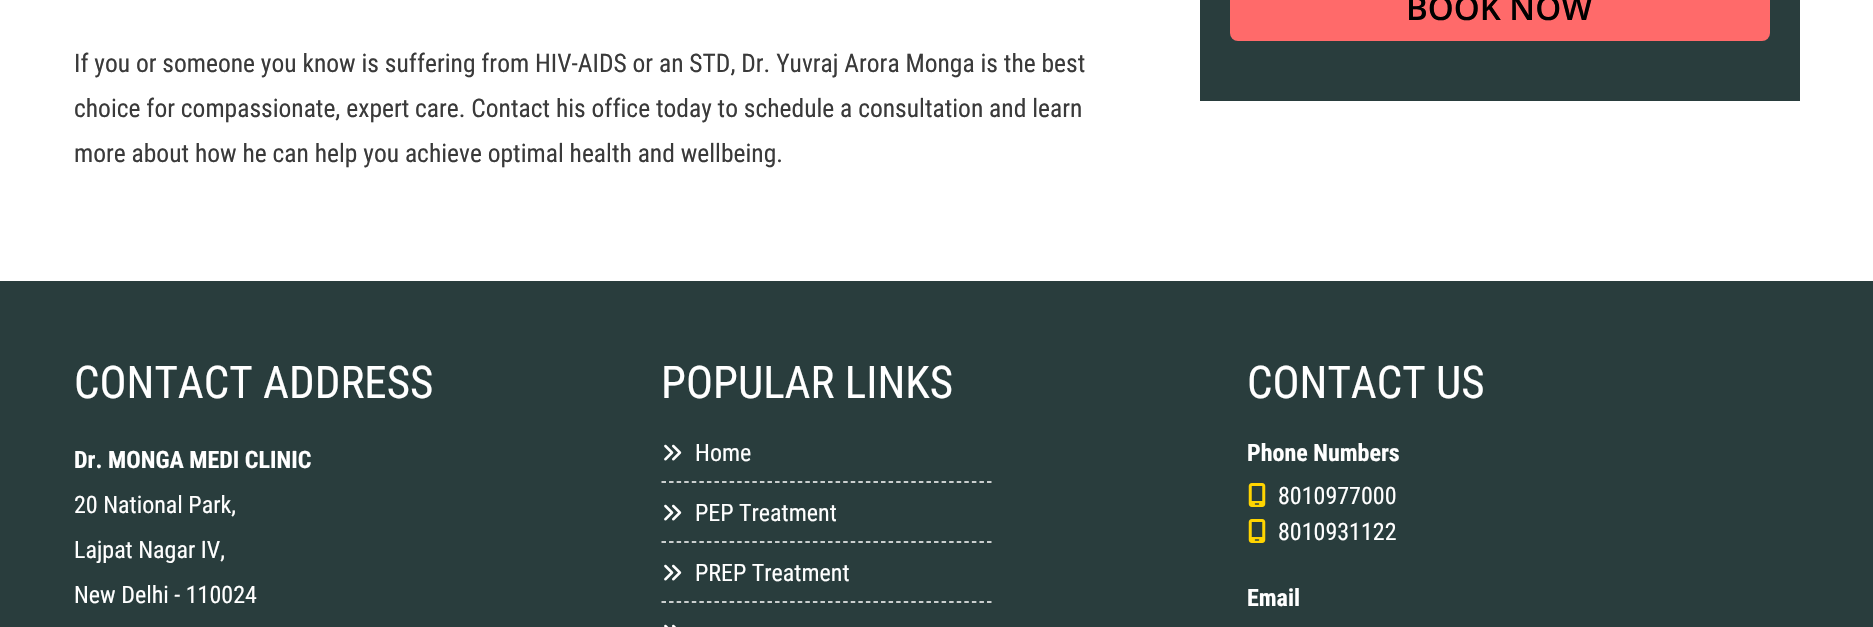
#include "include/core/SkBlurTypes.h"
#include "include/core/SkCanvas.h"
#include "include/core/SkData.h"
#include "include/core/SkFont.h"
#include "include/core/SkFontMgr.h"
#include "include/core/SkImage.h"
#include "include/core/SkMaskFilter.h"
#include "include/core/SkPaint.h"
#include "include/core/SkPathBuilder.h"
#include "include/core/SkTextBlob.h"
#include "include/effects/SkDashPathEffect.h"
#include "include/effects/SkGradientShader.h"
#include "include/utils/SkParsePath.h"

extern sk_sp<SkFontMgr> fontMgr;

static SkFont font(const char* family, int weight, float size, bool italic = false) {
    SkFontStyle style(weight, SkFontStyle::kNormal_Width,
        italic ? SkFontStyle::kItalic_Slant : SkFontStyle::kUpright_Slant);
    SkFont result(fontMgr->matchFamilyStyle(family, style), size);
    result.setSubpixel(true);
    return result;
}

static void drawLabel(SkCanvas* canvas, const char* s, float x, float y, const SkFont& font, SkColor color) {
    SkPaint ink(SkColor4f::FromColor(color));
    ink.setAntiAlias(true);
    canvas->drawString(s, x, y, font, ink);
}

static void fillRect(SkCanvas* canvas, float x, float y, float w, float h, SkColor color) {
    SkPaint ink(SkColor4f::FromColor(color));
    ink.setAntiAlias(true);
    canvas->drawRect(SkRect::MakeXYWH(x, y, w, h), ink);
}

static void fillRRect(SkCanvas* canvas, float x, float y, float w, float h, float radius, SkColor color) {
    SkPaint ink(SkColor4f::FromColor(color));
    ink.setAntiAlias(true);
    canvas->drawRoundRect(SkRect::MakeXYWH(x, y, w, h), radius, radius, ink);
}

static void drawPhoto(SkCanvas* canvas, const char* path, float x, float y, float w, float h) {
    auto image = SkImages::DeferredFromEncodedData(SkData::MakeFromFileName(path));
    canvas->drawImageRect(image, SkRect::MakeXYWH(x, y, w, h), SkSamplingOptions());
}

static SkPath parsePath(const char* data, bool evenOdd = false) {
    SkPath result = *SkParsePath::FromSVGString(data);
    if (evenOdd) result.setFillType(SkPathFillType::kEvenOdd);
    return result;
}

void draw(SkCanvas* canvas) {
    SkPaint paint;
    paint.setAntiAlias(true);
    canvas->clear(0xFFFFFFFF);
    fillRect(canvas, 1200, 0, 600, 101, 0xFF293D3D);
    fillRRect(canvas, 1230, -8, 540, 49, 8, 0xFFFF6A6A);
    SkFont font1 = font("Open Sans", 600, 33);
    drawLabel(canvas, "BOOK NOW", 1406, 20, font1, 0xFF000000);
    SkFont font2 = font("Roboto Condensed", 400, 25.5f);
    drawLabel(canvas, "If you or someone you know is suffering from HIV-AIDS or an STD, Dr. Yuvraj Arora Monga is the best", 74, 72, font2, 0xFF3A3A3A);
    drawLabel(canvas, "choice for compassionate, expert care. Contact his office today to schedule a consultation and learn", 74, 117, font2, 0xFF3A3A3A);
    drawLabel(canvas, "more about how he can help you achieve optimal health and wellbeing.", 74, 162, font2, 0xFF3A3A3A);
    fillRect(canvas, 0, 281, 1873, 346, 0xFF293D3D);
    SkFont font3 = font("Roboto Condensed", 400, 45);
    drawLabel(canvas, "CONTACT ADDRESS", 74, 398, font3, 0xFFFFFFFF);
    SkFont font4 = font("Roboto Condensed", 700, 24);
    drawLabel(canvas, "Dr. MONGA MEDI CLINIC", 74, 468, font4, 0xFFFFFFFF);
    SkFont font5 = font("Roboto Condensed", 400, 24);
    drawLabel(canvas, "20 National Park,", 74, 513, font5, 0xFFFFFFFF);
    drawLabel(canvas, "Lajpat Nagar IV,", 74, 558, font5, 0xFFFFFFFF);
    drawLabel(canvas, "New Delhi - 110024", 74, 603, font5, 0xFFFFFFFF);
    drawLabel(canvas, "POPULAR LINKS", 661, 398, font3, 0xFFFFFFFF);
    paint.setStroke(true);
    paint.setStrokeWidth(1.5f);
    paint.setColor(0xFFFFFFFF);
    paint.setPathEffect(SkDashPathEffect::Make({{4.5f, 3.07f}}, 0));
    canvas->drawPath(parsePath("M661.5 482H991.5"), paint);
    paint.setPathEffect(nullptr);
    drawPhoto(canvas, "assets/img1.png", 664, 444, 18, 17);
    drawLabel(canvas, "Home", 695, 461, font5, 0xFFFFFFFF);
    paint.setPathEffect(SkDashPathEffect::Make({{4.5f, 3.07f}}, 0));
    canvas->drawPath(parsePath("M661.5 542H991.5"), paint);
    paint.setPathEffect(nullptr);
    drawPhoto(canvas, "assets/img1.png", 664, 504, 18, 17);
    drawLabel(canvas, "PEP Treatment", 695, 521, font5, 0xFFFFFFFF);
    paint.setPathEffect(SkDashPathEffect::Make({{4.5f, 3.07f}}, 0));
    canvas->drawPath(parsePath("M661.5 602H991.5"), paint);
    paint.setPathEffect(nullptr);
    drawPhoto(canvas, "assets/img1.png", 664, 564, 18, 17);
    drawLabel(canvas, "PREP Treatment", 695, 581, font5, 0xFFFFFFFF);
    drawPhoto(canvas, "assets/img2.png", 664, 624, 12, 3);
    drawLabel(canvas, "CONTACT US", 1247, 398, font3, 0xFFFFFFFF);
    drawLabel(canvas, "Phone Numbers", 1247, 461, font4, 0xFFFFFFFF);
    drawPhoto(canvas, "assets/img3.png", 1248, 483, 18, 24);
    drawLabel(canvas, "8010977000", 1278, 504, font5, 0xFFFFFFFF);
    drawPhoto(canvas, "assets/img3.png", 1248, 519, 18, 24);
    drawLabel(canvas, "8010931122", 1278, 540, font5, 0xFFFFFFFF);
    drawLabel(canvas, "Email", 1247, 606, font4, 0xFFFFFFFF);
}
